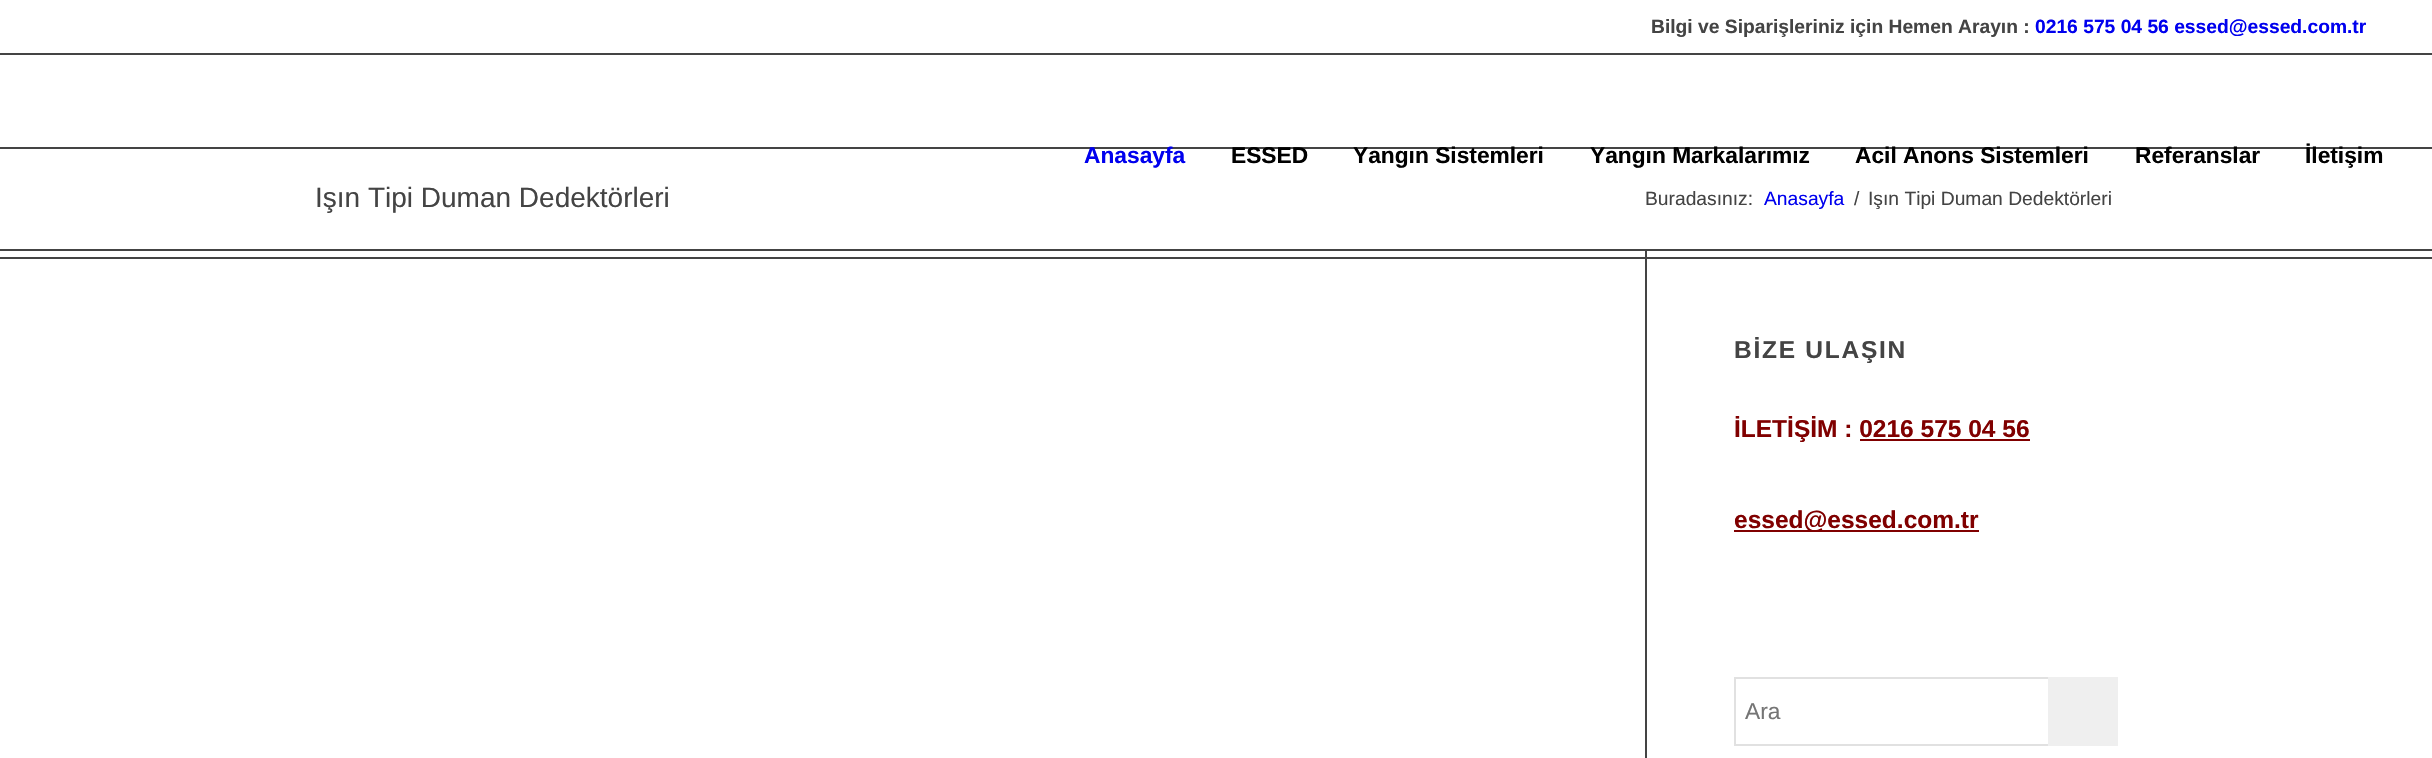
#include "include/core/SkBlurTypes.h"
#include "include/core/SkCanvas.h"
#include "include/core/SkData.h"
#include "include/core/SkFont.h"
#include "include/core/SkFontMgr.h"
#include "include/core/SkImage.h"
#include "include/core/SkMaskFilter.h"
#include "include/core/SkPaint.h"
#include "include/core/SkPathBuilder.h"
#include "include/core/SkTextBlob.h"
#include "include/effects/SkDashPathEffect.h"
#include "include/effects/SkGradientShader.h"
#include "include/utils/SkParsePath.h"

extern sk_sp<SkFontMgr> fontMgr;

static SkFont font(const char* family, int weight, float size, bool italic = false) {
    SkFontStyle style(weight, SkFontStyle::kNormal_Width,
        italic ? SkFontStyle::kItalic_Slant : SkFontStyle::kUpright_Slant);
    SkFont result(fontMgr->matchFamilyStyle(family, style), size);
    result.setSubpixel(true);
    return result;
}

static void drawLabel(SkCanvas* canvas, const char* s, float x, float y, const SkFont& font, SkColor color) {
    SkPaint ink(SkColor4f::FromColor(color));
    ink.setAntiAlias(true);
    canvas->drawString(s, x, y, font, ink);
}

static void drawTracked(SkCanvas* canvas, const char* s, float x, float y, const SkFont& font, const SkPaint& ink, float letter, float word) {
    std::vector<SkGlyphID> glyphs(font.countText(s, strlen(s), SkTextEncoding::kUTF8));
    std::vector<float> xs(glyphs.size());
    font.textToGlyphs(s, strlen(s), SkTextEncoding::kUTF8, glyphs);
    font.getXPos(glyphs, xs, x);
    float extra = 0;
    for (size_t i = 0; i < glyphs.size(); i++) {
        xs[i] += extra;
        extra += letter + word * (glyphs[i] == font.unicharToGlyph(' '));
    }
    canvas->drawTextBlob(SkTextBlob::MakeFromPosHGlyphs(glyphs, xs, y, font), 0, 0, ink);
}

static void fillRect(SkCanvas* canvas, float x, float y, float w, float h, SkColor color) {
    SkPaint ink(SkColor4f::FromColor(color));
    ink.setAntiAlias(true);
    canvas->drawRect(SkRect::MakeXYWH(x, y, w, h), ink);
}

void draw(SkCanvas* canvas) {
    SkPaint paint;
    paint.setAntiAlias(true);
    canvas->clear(0xFFFFFFFF);
    SkFont font1 = font("Liberation Sans", 700, 19.25f);
    drawLabel(canvas, "Bilgi ve Siparişleriniz için Hemen Arayın :", 1651, 33, font1, 0xFF444444);
    drawLabel(canvas, "0216 575 04 56 essed@essed.com.tr", 2035, 33, font1, 0xFF0000EE);
    fillRect(canvas, 0, 53, 2432, 2, 0xFF444444);
    fillRect(canvas, 0, 249, 2432, 2, 0xFF444444);
    fillRect(canvas, 1645, 250, 2, 508, 0xFF444444);
    fillRect(canvas, 0, 257, 2432, 2, 0xFF444444);
    fillRect(canvas, 0, 147, 2432, 2, 0xFF444444);
    SkFont font2 = font("Liberation Sans", 700, 22.75f);
    drawLabel(canvas, "Anasayfa", 1084, 163, font2, 0xFF0000EE);
    drawLabel(canvas, "ESSED", 1231, 163, font2, 0xFF000000);
    drawLabel(canvas, "Yangın Sistemleri", 1353, 163, font2, 0xFF000000);
    drawLabel(canvas, "Yangın Markalarımız", 1590, 163, font2, 0xFF000000);
    drawLabel(canvas, "Acil Anons Sistemleri", 1855, 163, font2, 0xFF000000);
    drawLabel(canvas, "Referanslar", 2135, 163, font2, 0xFF000000);
    drawLabel(canvas, "İletişim", 2305, 163, font2, 0xFF000000);
    SkFont font3 = font("Liberation Sans", 400, 28);
    drawLabel(canvas, "Işın Tipi Duman Dedektörleri", 315, 207, font3, 0xFF444444);
    SkFont font4 = font("Liberation Sans", 400, 19.25f);
    drawLabel(canvas, "Buradasınız:", 1645, 205, font4, 0xFF444444);
    drawLabel(canvas, "Anasayfa", 1764, 205, font4, 0xFF0000EE);
    drawLabel(canvas, "/", 1854, 205, font4, 0xFF444444);
    drawLabel(canvas, "Işın Tipi Duman Dedektörleri", 1868, 205, font4, 0xFF444444);
    SkFont font5 = font("Liberation Sans", 700, 24.5f);
    paint.setColor(0xFF444444);
    drawTracked(canvas, "BİZE ULAŞIN", 1734, 358, font5, paint, 1.75f, 0);
    drawLabel(canvas, "İLETİŞİM : 0216 575 04 56", 1734, 437, font5, 0xFF800000);
    fillRect(canvas, 1860, 439, 170, 2, 0xFF800000);
    fillRect(canvas, 1734, 530, 245, 2, 0xFF800000);
    drawLabel(canvas, "essed@essed.com.tr", 1734, 528, font5, 0xFF800000);
    paint.setStroke(true);
    paint.setStrokeWidth(2);
    paint.setColor(0xFFE1E1E1);
    canvas->drawRect(SkRect::MakeXYWH(1735, 678, 382, 67), paint);
    SkFont font6 = font("Liberation Sans", 400, 22.75f);
    drawLabel(canvas, "Ara", 1745, 719, font6, 0xFF757575);
    fillRect(canvas, 2048, 677, 70, 69, 0xFFEFEFEF);
}
